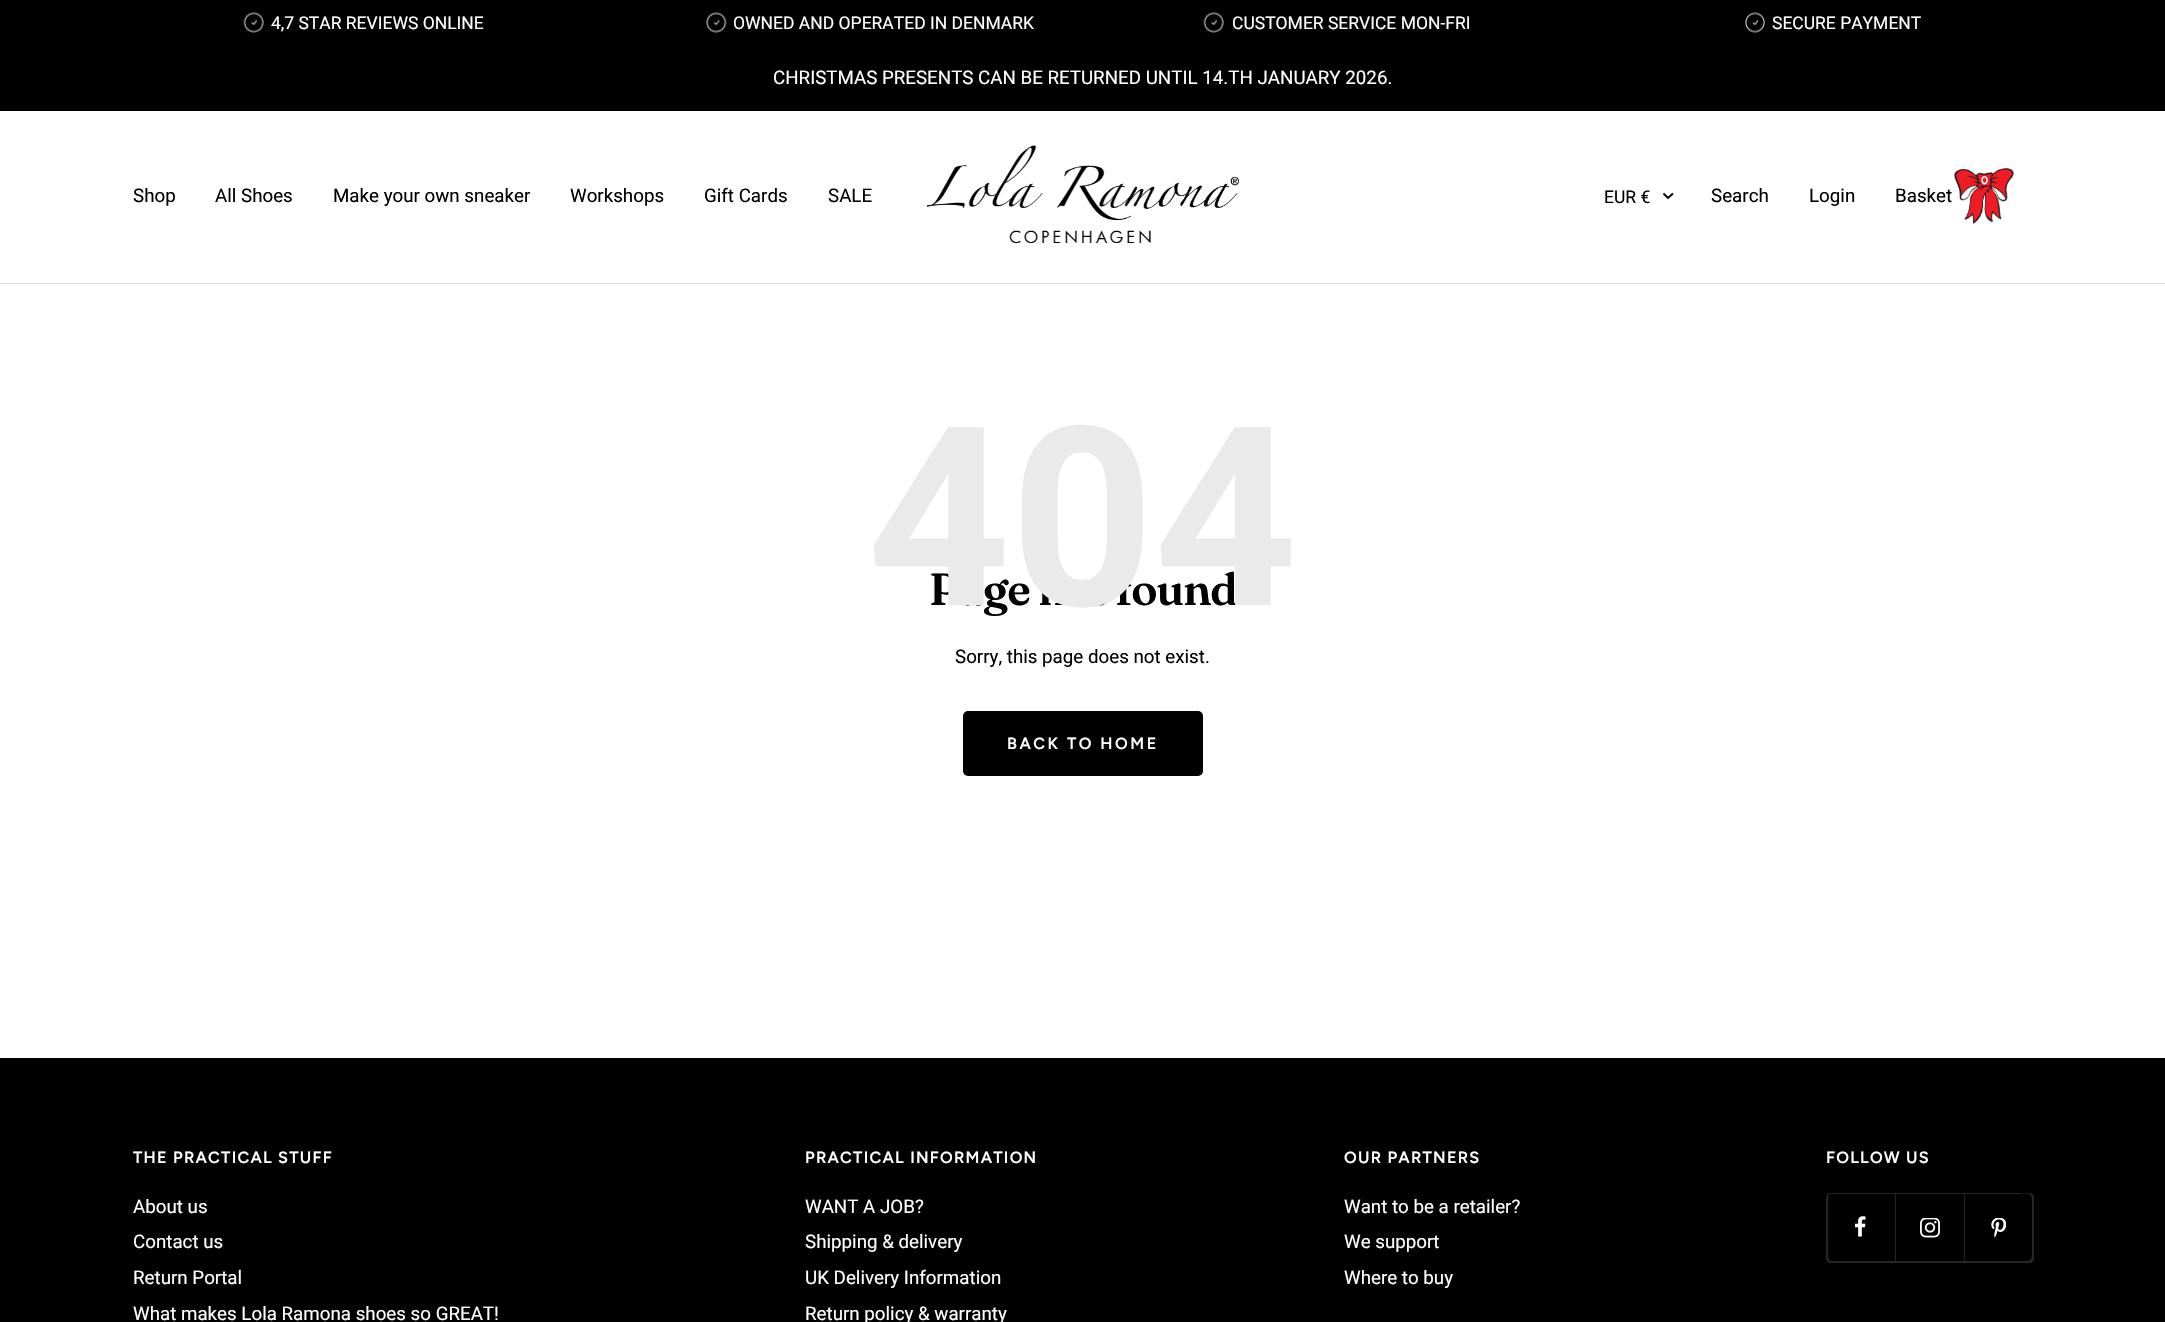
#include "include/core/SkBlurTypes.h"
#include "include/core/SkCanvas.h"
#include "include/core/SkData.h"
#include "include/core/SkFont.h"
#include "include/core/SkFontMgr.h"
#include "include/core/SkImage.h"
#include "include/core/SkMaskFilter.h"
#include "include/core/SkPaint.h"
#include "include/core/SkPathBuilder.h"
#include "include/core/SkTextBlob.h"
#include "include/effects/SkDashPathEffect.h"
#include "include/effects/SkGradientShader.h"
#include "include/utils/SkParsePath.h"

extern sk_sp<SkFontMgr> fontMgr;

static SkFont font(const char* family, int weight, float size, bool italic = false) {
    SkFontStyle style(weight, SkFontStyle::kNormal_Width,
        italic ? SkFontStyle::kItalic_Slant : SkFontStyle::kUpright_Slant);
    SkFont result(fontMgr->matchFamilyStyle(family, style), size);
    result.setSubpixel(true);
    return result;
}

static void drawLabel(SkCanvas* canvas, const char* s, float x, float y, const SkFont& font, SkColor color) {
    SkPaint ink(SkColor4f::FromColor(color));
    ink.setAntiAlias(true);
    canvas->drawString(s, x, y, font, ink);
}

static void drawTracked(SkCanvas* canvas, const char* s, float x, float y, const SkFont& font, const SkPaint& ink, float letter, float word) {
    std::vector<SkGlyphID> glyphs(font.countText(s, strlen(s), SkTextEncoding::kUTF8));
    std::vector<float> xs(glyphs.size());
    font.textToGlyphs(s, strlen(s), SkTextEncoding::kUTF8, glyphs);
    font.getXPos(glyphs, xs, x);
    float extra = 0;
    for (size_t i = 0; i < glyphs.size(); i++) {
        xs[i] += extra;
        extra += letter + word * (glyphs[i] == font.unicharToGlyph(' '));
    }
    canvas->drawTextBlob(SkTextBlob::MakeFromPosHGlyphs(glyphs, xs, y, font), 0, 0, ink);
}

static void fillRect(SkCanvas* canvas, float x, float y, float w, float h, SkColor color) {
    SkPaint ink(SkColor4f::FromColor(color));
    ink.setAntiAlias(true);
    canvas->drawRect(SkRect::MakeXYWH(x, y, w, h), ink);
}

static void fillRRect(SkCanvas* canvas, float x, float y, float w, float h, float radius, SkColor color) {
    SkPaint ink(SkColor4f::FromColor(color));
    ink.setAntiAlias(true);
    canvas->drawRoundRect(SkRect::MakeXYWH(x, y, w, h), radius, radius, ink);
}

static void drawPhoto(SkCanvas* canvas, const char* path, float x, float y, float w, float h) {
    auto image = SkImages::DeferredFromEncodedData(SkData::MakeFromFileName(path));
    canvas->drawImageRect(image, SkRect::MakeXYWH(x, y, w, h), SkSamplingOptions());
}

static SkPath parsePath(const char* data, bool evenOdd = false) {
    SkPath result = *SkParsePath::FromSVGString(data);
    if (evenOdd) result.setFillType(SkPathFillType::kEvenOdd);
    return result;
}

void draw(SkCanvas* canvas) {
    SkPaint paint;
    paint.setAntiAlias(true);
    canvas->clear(0xFFFFFFFF);
    fillRect(canvas, 0, 0, 2165, 111, 0xFF000000);
    drawPhoto(canvas, "assets/img1.png", 243, 12, 21, 21);
    SkFont font1 = font("Roboto", 400, 17.5f);
    drawLabel(canvas, "4,7 STAR REVIEWS ONLINE", 271, 29, font1, 0xFFFFFFFF);
    drawPhoto(canvas, "assets/img2.png", 706, 12, 21, 21);
    drawLabel(canvas, "OWNED AND OPERATED IN DENMARK", 733, 29, font1, 0xFFFFFFFF);
    drawPhoto(canvas, "assets/img1.png", 1203, 12, 21, 21);
    drawLabel(canvas, "CUSTOMER SERVICE MON-FRI", 1232, 29, font1, 0xFFFFFFFF);
    drawPhoto(canvas, "assets/img3.png", 1745, 12, 20, 21);
    drawLabel(canvas, "SECURE PAYMENT", 1772, 29, font1, 0xFFFFFFFF);
    SkFont font2 = font("Roboto", 400, 18.75f);
    drawLabel(canvas, "CHRISTMAS PRESENTS CAN BE RETURNED UNTIL 14.TH JANUARY 2026.", 773, 84, font2, 0xFFFFFFFF);
    fillRect(canvas, 0, 283, 2165, 1, 0xFFDDDDDD);
    drawLabel(canvas, "Shop", 133, 202, font2, 0xFF000000);
    drawLabel(canvas, "All Shoes", 215, 202, font2, 0xFF000000);
    drawLabel(canvas, "Make your own sneaker", 333, 202, font2, 0xFF000000);
    drawLabel(canvas, "Workshops", 570, 202, font2, 0xFF000000);
    drawLabel(canvas, "Gift Cards", 704, 202, font2, 0xFF000000);
    drawLabel(canvas, "SALE", 828, 202, font2, 0xFF000000);
    drawPhoto(canvas, "assets/img4.png", 926, 145, 313, 98);
    drawLabel(canvas, "EUR €", 1604, 203, font1, 0xFF000000);
    paint.setStroke(true);
    paint.setStrokeWidth(1.9f);
    paint.setColor(0xFF000000);
    canvas->drawPath(parsePath("M1663.5 193.5L1668 198L1673 193.5"), paint);
    drawLabel(canvas, "Search", 1711, 202, font2, 0xFF000000);
    drawLabel(canvas, "Login", 1809, 202, font2, 0xFF000000);
    drawPhoto(canvas, "assets/img5.png", 1954, 168, 60, 57);
    SkFont font3 = font("Figtree", 600, 11);
    drawLabel(canvas, "0", 1981, 184, font3, 0xFFFFFFFF);
    drawLabel(canvas, "Basket", 1895, 202, font2, 0xFF000000);
    SkFont font4 = font("Fraunces", 600, 45);
    paint.setStroke(false);
    drawTracked(canvas, "Page not found", 929, 605, font4, paint, -1, 0);
    SkFont font5 = font("Roboto", 700, 250);
    drawLabel(canvas, "404", 867, 605, font5, 0xFFEAEAEA);
    drawLabel(canvas, "Sorry, this page does not exist.", 955, 663, font2, 0xFF000000);
    fillRRect(canvas, 963, 711, 240, 65, 5, 0xFF000000);
    SkFont font6 = font("Figtree", 600, 16.25f);
    paint.setColor(0xFFFFFFFF);
    drawTracked(canvas, "BACK TO HOME", 1007, 749, font6, paint, 2.5f, 0);
    fillRect(canvas, 0, 1058, 2165, 264, 0xFF000000);
    drawTracked(canvas, "THE PRACTICAL STUFF", 133, 1163, font6, paint, 1.25f, 0);
    drawLabel(canvas, "About us", 133, 1213, font2, 0xFFFFFFFF);
    drawLabel(canvas, "Contact us", 133, 1248, font2, 0xFFFFFFFF);
    drawLabel(canvas, "Return Portal", 133, 1284, font2, 0xFFFFFFFF);
    drawLabel(canvas, "What makes Lola Ramona shoes so GREAT!", 133, 1320, font2, 0xFFFFFFFF);
    drawTracked(canvas, "PRACTICAL INFORMATION", 805, 1163, font6, paint, 1.25f, 0);
    drawLabel(canvas, "WANT A JOB?", 805, 1213, font2, 0xFFFFFFFF);
    drawLabel(canvas, "Shipping & delivery", 805, 1248, font2, 0xFFFFFFFF);
    drawLabel(canvas, "UK Delivery Information", 805, 1284, font2, 0xFFFFFFFF);
    drawLabel(canvas, "Return policy & warranty", 805, 1320, font2, 0xFFFFFFFF);
    drawTracked(canvas, "OUR PARTNERS", 1344, 1163, font6, paint, 1.25f, 0);
    drawLabel(canvas, "Want to be a retailer?", 1344, 1213, font2, 0xFFFFFFFF);
    drawLabel(canvas, "We support", 1344, 1248, font2, 0xFFFFFFFF);
    drawLabel(canvas, "Where to buy", 1344, 1284, font2, 0xFFFFFFFF);
    drawTracked(canvas, "FOLLOW US", 1826, 1163, font6, paint, 1.25f, 0);
    paint.setColor(0xFF262626);
    canvas->drawPath(parsePath("M1829 1261C1830 1262 1831 1263 1833 1263H1896V1194H1895V1261H1831Z"), paint);
    canvas->drawPath(parsePath("M1826 1197V1248C1826 1252 1824 1262 1830 1263H1895V1261H1830C1824 1260 1826 1250 1826 1246Z"), paint);
    fillRect(canvas, 1895, 1193, 1, 1, 0xFF262626);
    canvas->drawPath(parsePath("M1831 1194H1895V1193H1831C1828 1193 1826 1195 1826 1198V1199C1826 1196 1828 1194 1831 1194Z"), paint);
    canvas->drawPath(parsePath("M1830 1193C1828 1194 1826 1196 1826 1198V1256C1826 1259 1828 1261 1831 1261H1832C1830 1261 1828 1259 1828 1256V1198C1828 1196 1829 1194 1830 1193Z"), paint);
    drawPhoto(canvas, "assets/img6.png", 1855, 1216, 11, 21);
    canvas->drawPath(parsePath("M1896 1261V1263H1965V1194H1964V1261Z"), paint);
    fillRect(canvas, 1895, 1193, 70, 1, 0xFF262626);
    drawPhoto(canvas, "assets/img7.png", 1920, 1218, 20, 20);
    canvas->drawPath(parsePath("M1965 1261V1263H2029C2032 1263 2034 1261 2034 1258V1199C2034 1197 2033 1196 2032 1195V1198V1256C2032 1259 2030 1261 2028 1261Z"), paint);
    canvas->drawPath(parsePath("M1964 1261V1263H2028C2031 1263 2033 1261 2033 1258V1199L2032 1197V1246C2032 1250 2035 1260 2029 1261Z"), paint);
    canvas->drawPath(parsePath("M2029 1261C2032 1261 2034 1259 2034 1256V1198C2034 1196 2032 1193 2030 1193C2031 1194 2032 1196 2032 1198V1256C2032 1258 2031 1260 2029 1261Z"), paint);
    canvas->drawPath(parsePath("M1964 1194H2017C2022 1194 2032 1191 2032 1199V1259C2033 1258 2033 1257 2033 1256V1198C2033 1195 2031 1193 2028 1193H1964Z"), paint);
    drawPhoto(canvas, "assets/img8.png", 1991, 1218, 15, 20);
}
